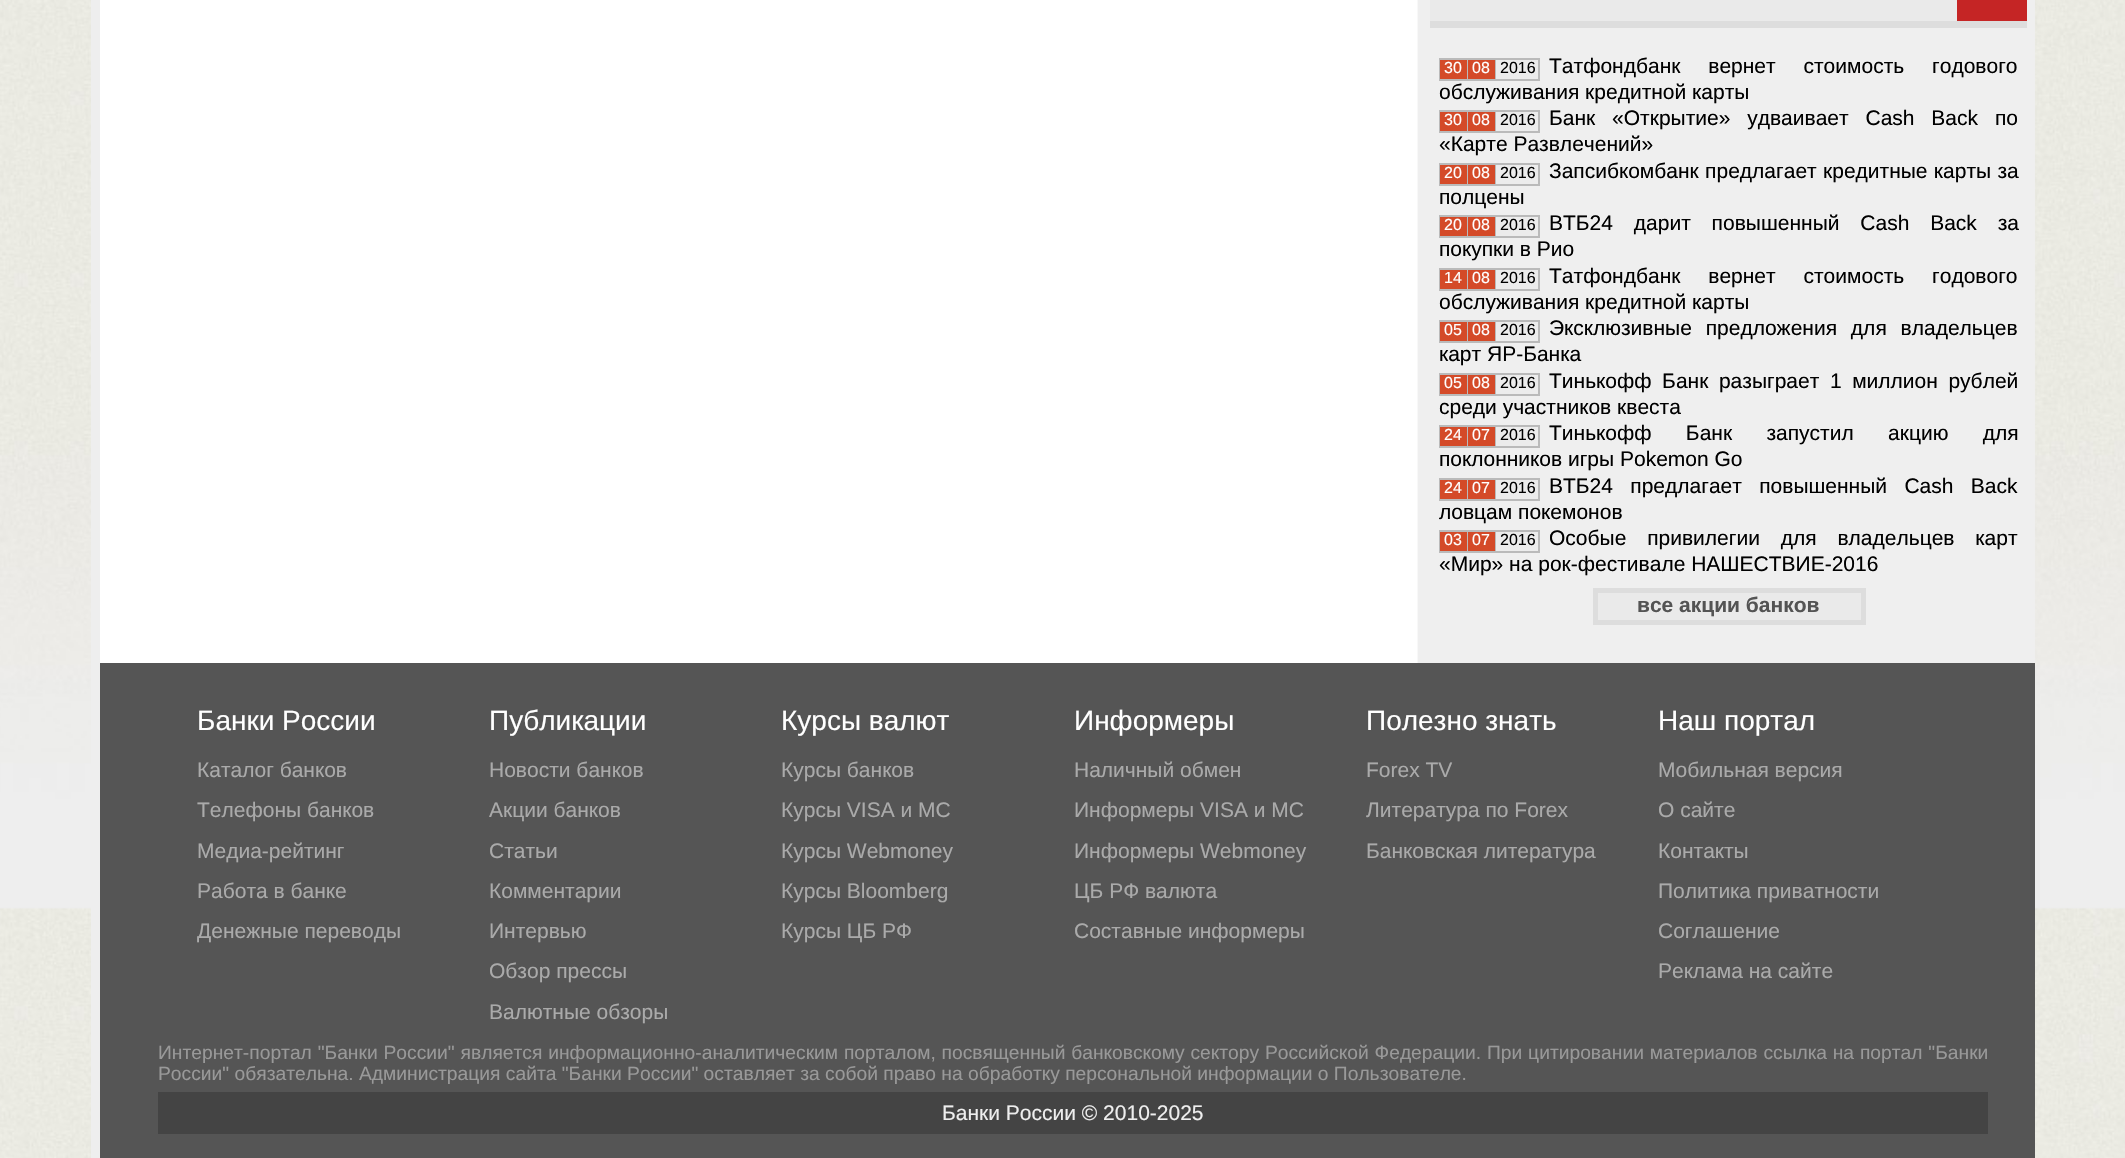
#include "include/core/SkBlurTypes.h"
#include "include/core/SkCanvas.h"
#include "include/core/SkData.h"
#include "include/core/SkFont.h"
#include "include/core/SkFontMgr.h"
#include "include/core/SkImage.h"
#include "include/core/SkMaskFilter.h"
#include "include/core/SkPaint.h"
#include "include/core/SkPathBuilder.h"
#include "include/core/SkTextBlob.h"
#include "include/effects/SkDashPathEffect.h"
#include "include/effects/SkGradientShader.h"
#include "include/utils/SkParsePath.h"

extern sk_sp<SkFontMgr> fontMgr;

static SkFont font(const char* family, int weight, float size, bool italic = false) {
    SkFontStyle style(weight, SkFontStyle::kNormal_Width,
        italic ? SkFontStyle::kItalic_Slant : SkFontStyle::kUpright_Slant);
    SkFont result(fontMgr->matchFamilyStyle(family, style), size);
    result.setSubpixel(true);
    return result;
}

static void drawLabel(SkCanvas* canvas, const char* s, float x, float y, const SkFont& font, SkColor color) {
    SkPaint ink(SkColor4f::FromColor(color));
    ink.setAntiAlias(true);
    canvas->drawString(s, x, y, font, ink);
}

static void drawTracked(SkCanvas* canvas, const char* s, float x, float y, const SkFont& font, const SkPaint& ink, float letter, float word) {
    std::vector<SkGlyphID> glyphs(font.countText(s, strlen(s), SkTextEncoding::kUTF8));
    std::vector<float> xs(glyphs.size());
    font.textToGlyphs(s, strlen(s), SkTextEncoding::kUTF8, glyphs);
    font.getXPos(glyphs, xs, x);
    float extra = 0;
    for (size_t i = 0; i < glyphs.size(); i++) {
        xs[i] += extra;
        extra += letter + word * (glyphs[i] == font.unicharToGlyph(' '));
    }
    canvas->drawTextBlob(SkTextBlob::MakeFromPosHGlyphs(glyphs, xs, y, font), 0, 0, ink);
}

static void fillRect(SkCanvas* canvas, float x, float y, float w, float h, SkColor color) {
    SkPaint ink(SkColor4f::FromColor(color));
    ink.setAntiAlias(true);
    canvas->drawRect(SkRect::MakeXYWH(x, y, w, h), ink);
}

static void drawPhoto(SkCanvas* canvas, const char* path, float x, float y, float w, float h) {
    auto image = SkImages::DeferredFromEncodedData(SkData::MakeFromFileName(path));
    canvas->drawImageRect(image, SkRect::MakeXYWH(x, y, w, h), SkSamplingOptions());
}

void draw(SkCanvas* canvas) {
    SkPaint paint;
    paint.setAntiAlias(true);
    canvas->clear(0xFFFFFFFF);
    drawPhoto(canvas, "assets/img1.png", 0, 0, 2125, 1158);
    drawPhoto(canvas, "assets/img2.png", 100, 0, 1927, 663);
    fillRect(canvas, 2027, 0, 8, 663, 0xFFEFEFEF);
    fillRect(canvas, 91, 0, 9, 1158, 0xFFEEEEEE);
    fillRect(canvas, 1430, 0, 527, 21, 0xFFEAEAEA);
    fillRect(canvas, 1430, 21, 597, 7, 0xFFDDDDDD);
    fillRect(canvas, 1957, 0, 70, 21, 0xFFC52525);
    paint.setStroke(true);
    paint.setStrokeWidth(2);
    paint.setColor(0xFFBABABA);
    canvas->drawRect(SkRect::MakeXYWH(1440, 59, 99, 21), paint);
    fillRect(canvas, 1440, 60, 27, 19, 0xFFD44A28);
    fillRect(canvas, 1467, 60, 1, 19, 0xFFBABABA);
    SkFont font1 = font("Liberation Sans", 400, 16);
    drawLabel(canvas, "30", 1444, 73, font1, 0xFFFFFFFF);
    fillRect(canvas, 1468, 60, 27, 19, 0xFFD44A28);
    fillRect(canvas, 1495, 60, 1, 19, 0xFFBABABA);
    drawLabel(canvas, "08", 1472, 73, font1, 0xFFFFFFFF);
    fillRect(canvas, 1496, 60, 42, 19, 0xFFECECEC);
    drawLabel(canvas, "2016", 1500, 73, font1, 0xFF000000);
    SkFont font2 = font("Liberation Sans", 400, 21);
    paint.setStroke(false);
    paint.setColor(0xFF000000);
    drawTracked(canvas, "Татфондбанк вернет стоимость годового", 1549, 73, font2, paint, 0, 22);
    drawLabel(canvas, "обслуживания кредитной карты", 1439, 99, font2, 0xFF000000);
    paint.setStroke(true);
    paint.setColor(0xFFBABABA);
    canvas->drawRect(SkRect::MakeXYWH(1440, 111, 99, 21), paint);
    fillRect(canvas, 1440, 112, 27, 19, 0xFFD44A28);
    fillRect(canvas, 1467, 112, 1, 19, 0xFFBABABA);
    drawLabel(canvas, "30", 1444, 125, font1, 0xFFFFFFFF);
    fillRect(canvas, 1468, 112, 27, 19, 0xFFD44A28);
    fillRect(canvas, 1495, 112, 1, 19, 0xFFBABABA);
    drawLabel(canvas, "08", 1472, 125, font1, 0xFFFFFFFF);
    fillRect(canvas, 1496, 112, 42, 19, 0xFFECECEC);
    drawLabel(canvas, "2016", 1500, 125, font1, 0xFF000000);
    paint.setStroke(false);
    paint.setColor(0xFF000000);
    drawTracked(canvas, "Банк «Открытие» удваивает Cash Back по", 1549, 125, font2, paint, 0, 11);
    drawLabel(canvas, "«Карте Развлечений»", 1439, 151, font2, 0xFF000000);
    paint.setStroke(true);
    paint.setColor(0xFFBABABA);
    canvas->drawRect(SkRect::MakeXYWH(1440, 164, 99, 21), paint);
    fillRect(canvas, 1440, 165, 27, 19, 0xFFD44A28);
    fillRect(canvas, 1467, 165, 1, 19, 0xFFBABABA);
    drawLabel(canvas, "20", 1444, 178, font1, 0xFFFFFFFF);
    fillRect(canvas, 1468, 165, 27, 19, 0xFFD44A28);
    fillRect(canvas, 1495, 165, 1, 19, 0xFFBABABA);
    drawLabel(canvas, "08", 1472, 178, font1, 0xFFFFFFFF);
    fillRect(canvas, 1496, 165, 42, 19, 0xFFECECEC);
    drawLabel(canvas, "2016", 1500, 178, font1, 0xFF000000);
    paint.setStroke(false);
    paint.setColor(0xFF000000);
    drawTracked(canvas, "Запсибкомбанк предлагает кредитные карты за", 1549, 178, font2, paint, 0, 0.5f);
    drawLabel(canvas, "полцены", 1439, 204, font2, 0xFF000000);
    paint.setStroke(true);
    paint.setColor(0xFFBABABA);
    canvas->drawRect(SkRect::MakeXYWH(1440, 216, 99, 21), paint);
    fillRect(canvas, 1440, 217, 27, 19, 0xFFD44A28);
    fillRect(canvas, 1467, 217, 1, 19, 0xFFBABABA);
    drawLabel(canvas, "20", 1444, 230, font1, 0xFFFFFFFF);
    fillRect(canvas, 1468, 217, 27, 19, 0xFFD44A28);
    fillRect(canvas, 1495, 217, 1, 19, 0xFFBABABA);
    drawLabel(canvas, "08", 1472, 230, font1, 0xFFFFFFFF);
    fillRect(canvas, 1496, 217, 42, 19, 0xFFECECEC);
    drawLabel(canvas, "2016", 1500, 230, font1, 0xFF000000);
    paint.setStroke(false);
    paint.setColor(0xFF000000);
    drawTracked(canvas, "ВТБ24 дарит повышенный Cash Back за", 1549, 230, font2, paint, 0, 15);
    drawLabel(canvas, "покупки в Рио", 1439, 256, font2, 0xFF000000);
    paint.setStroke(true);
    paint.setColor(0xFFBABABA);
    canvas->drawRect(SkRect::MakeXYWH(1440, 269, 99, 21), paint);
    fillRect(canvas, 1440, 270, 27, 19, 0xFFD44A28);
    fillRect(canvas, 1467, 270, 1, 19, 0xFFBABABA);
    drawLabel(canvas, "14", 1444, 283, font1, 0xFFFFFFFF);
    fillRect(canvas, 1468, 270, 27, 19, 0xFFD44A28);
    fillRect(canvas, 1495, 270, 1, 19, 0xFFBABABA);
    drawLabel(canvas, "08", 1472, 283, font1, 0xFFFFFFFF);
    fillRect(canvas, 1496, 270, 42, 19, 0xFFECECEC);
    drawLabel(canvas, "2016", 1500, 283, font1, 0xFF000000);
    paint.setStroke(false);
    paint.setColor(0xFF000000);
    drawTracked(canvas, "Татфондбанк вернет стоимость годового", 1549, 283, font2, paint, 0, 22);
    drawLabel(canvas, "обслуживания кредитной карты", 1439, 309, font2, 0xFF000000);
    paint.setStroke(true);
    paint.setColor(0xFFBABABA);
    canvas->drawRect(SkRect::MakeXYWH(1440, 321, 99, 21), paint);
    fillRect(canvas, 1440, 322, 27, 19, 0xFFD44A28);
    fillRect(canvas, 1467, 322, 1, 19, 0xFFBABABA);
    drawLabel(canvas, "05", 1444, 335, font1, 0xFFFFFFFF);
    fillRect(canvas, 1468, 322, 27, 19, 0xFFD44A28);
    fillRect(canvas, 1495, 322, 1, 19, 0xFFBABABA);
    drawLabel(canvas, "08", 1472, 335, font1, 0xFFFFFFFF);
    fillRect(canvas, 1496, 322, 42, 19, 0xFFECECEC);
    drawLabel(canvas, "2016", 1500, 335, font1, 0xFF000000);
    paint.setStroke(false);
    paint.setColor(0xFF000000);
    drawTracked(canvas, "Эксклюзивные предложения для владельцев", 1549, 335, font2, paint, 0, 8);
    drawLabel(canvas, "карт ЯР-Банка", 1439, 361, font2, 0xFF000000);
    paint.setStroke(true);
    paint.setColor(0xFFBABABA);
    canvas->drawRect(SkRect::MakeXYWH(1440, 374, 99, 21), paint);
    fillRect(canvas, 1440, 375, 27, 19, 0xFFD44A28);
    fillRect(canvas, 1467, 375, 1, 19, 0xFFBABABA);
    drawLabel(canvas, "05", 1444, 388, font1, 0xFFFFFFFF);
    fillRect(canvas, 1468, 375, 27, 19, 0xFFD44A28);
    fillRect(canvas, 1495, 375, 1, 19, 0xFFBABABA);
    drawLabel(canvas, "08", 1472, 388, font1, 0xFFFFFFFF);
    fillRect(canvas, 1496, 375, 42, 19, 0xFFECECEC);
    drawLabel(canvas, "2016", 1500, 388, font1, 0xFF000000);
    paint.setStroke(false);
    paint.setColor(0xFF000000);
    drawTracked(canvas, "Тинькофф Банк разыграет 1 миллион рублей", 1549, 388, font2, paint, 0, 4.75f);
    drawLabel(canvas, "среди участников квеста", 1439, 414, font2, 0xFF000000);
    paint.setStroke(true);
    paint.setColor(0xFFBABABA);
    canvas->drawRect(SkRect::MakeXYWH(1440, 426, 99, 21), paint);
    fillRect(canvas, 1440, 427, 27, 19, 0xFFD44A28);
    fillRect(canvas, 1467, 427, 1, 19, 0xFFBABABA);
    drawLabel(canvas, "24", 1444, 440, font1, 0xFFFFFFFF);
    fillRect(canvas, 1468, 427, 27, 19, 0xFFD44A28);
    fillRect(canvas, 1495, 427, 1, 19, 0xFFBABABA);
    drawLabel(canvas, "07", 1472, 440, font1, 0xFFFFFFFF);
    fillRect(canvas, 1496, 427, 42, 19, 0xFFECECEC);
    drawLabel(canvas, "2016", 1500, 440, font1, 0xFF000000);
    paint.setStroke(false);
    paint.setColor(0xFF000000);
    drawTracked(canvas, "Тинькофф Банк запустил акцию для", 1549, 440, font2, paint, 0, 28.5f);
    drawLabel(canvas, "поклонников игры Pokemon Go", 1439, 466, font2, 0xFF000000);
    paint.setStroke(true);
    paint.setColor(0xFFBABABA);
    canvas->drawRect(SkRect::MakeXYWH(1440, 479, 99, 21), paint);
    fillRect(canvas, 1440, 480, 27, 19, 0xFFD44A28);
    fillRect(canvas, 1467, 480, 1, 19, 0xFFBABABA);
    drawLabel(canvas, "24", 1444, 493, font1, 0xFFFFFFFF);
    fillRect(canvas, 1468, 480, 27, 19, 0xFFD44A28);
    fillRect(canvas, 1495, 480, 1, 19, 0xFFBABABA);
    drawLabel(canvas, "07", 1472, 493, font1, 0xFFFFFFFF);
    fillRect(canvas, 1496, 480, 42, 19, 0xFFECECEC);
    drawLabel(canvas, "2016", 1500, 493, font1, 0xFF000000);
    paint.setStroke(false);
    paint.setColor(0xFF000000);
    drawTracked(canvas, "ВТБ24 предлагает повышенный Cash Back", 1549, 493, font2, paint, 0, 11.5f);
    drawLabel(canvas, "ловцам покемонов", 1439, 519, font2, 0xFF000000);
    paint.setStroke(true);
    paint.setColor(0xFFBABABA);
    canvas->drawRect(SkRect::MakeXYWH(1440, 531, 99, 21), paint);
    fillRect(canvas, 1440, 532, 27, 19, 0xFFD44A28);
    fillRect(canvas, 1467, 532, 1, 19, 0xFFBABABA);
    drawLabel(canvas, "03", 1444, 545, font1, 0xFFFFFFFF);
    fillRect(canvas, 1468, 532, 27, 19, 0xFFD44A28);
    fillRect(canvas, 1495, 532, 1, 19, 0xFFBABABA);
    drawLabel(canvas, "07", 1472, 545, font1, 0xFFFFFFFF);
    fillRect(canvas, 1496, 532, 42, 19, 0xFFECECEC);
    drawLabel(canvas, "2016", 1500, 545, font1, 0xFF000000);
    paint.setStroke(false);
    paint.setColor(0xFF000000);
    drawTracked(canvas, "Особые привилегии для владельцев карт", 1549, 545, font2, paint, 0, 15);
    drawLabel(canvas, "«Мир» на рок-фестивале НАШЕСТВИЕ-2016", 1439, 571, font2, 0xFF000000);
    paint.setColor(0xFFEAEAEA);
    canvas->drawRect(SkRect::MakeXYWH(1595.5f, 590.5f, 268, 32), paint);
    paint.setStroke(true);
    paint.setStrokeWidth(5);
    paint.setColor(0xFFDDDDDD);
    canvas->drawRect(SkRect::MakeXYWH(1595.5f, 590.5f, 268, 32), paint);
    SkFont font3 = font("Liberation Sans", 700, 21);
    drawLabel(canvas, "все акции банков", 1637, 612, font3, 0xFF545454);
    fillRect(canvas, 100, 663, 1935, 495, 0xFF555555);
    SkFont font4 = font("Liberation Sans", 400, 28);
    drawLabel(canvas, "Банки России", 197, 730, font4, 0xFFFFFFFF);
    drawLabel(canvas, "Каталог банков", 197, 777, font2, 0xFFAAAAAA);
    drawLabel(canvas, "Телефоны банков", 197, 817, font2, 0xFFAAAAAA);
    drawLabel(canvas, "Медиа-рейтинг", 197, 858, font2, 0xFFAAAAAA);
    drawLabel(canvas, "Работа в банке", 197, 898, font2, 0xFFAAAAAA);
    drawLabel(canvas, "Денежные переводы", 197, 938, font2, 0xFFAAAAAA);
    drawLabel(canvas, "Публикации", 489, 730, font4, 0xFFFFFFFF);
    drawLabel(canvas, "Новости банков", 489, 777, font2, 0xFFAAAAAA);
    drawLabel(canvas, "Акции банков", 489, 817, font2, 0xFFAAAAAA);
    drawLabel(canvas, "Статьи", 489, 858, font2, 0xFFAAAAAA);
    drawLabel(canvas, "Комментарии", 489, 898, font2, 0xFFAAAAAA);
    drawLabel(canvas, "Интервью", 489, 938, font2, 0xFFAAAAAA);
    drawLabel(canvas, "Обзор прессы", 489, 978, font2, 0xFFAAAAAA);
    drawLabel(canvas, "Валютные обзоры", 489, 1019, font2, 0xFFAAAAAA);
    drawLabel(canvas, "Курсы валют", 781, 730, font4, 0xFFFFFFFF);
    drawLabel(canvas, "Курсы банков", 781, 777, font2, 0xFFAAAAAA);
    drawLabel(canvas, "Курсы VISA и MC", 781, 817, font2, 0xFFAAAAAA);
    drawLabel(canvas, "Курсы Webmoney", 781, 858, font2, 0xFFAAAAAA);
    drawLabel(canvas, "Курсы Bloomberg", 781, 898, font2, 0xFFAAAAAA);
    drawLabel(canvas, "Курсы ЦБ РФ", 781, 938, font2, 0xFFAAAAAA);
    drawLabel(canvas, "Информеры", 1074, 730, font4, 0xFFFFFFFF);
    drawLabel(canvas, "Наличный обмен", 1074, 777, font2, 0xFFAAAAAA);
    drawLabel(canvas, "Информеры VISA и MC", 1074, 817, font2, 0xFFAAAAAA);
    drawLabel(canvas, "Информеры Webmoney", 1074, 858, font2, 0xFFAAAAAA);
    drawLabel(canvas, "ЦБ РФ валюта", 1074, 898, font2, 0xFFAAAAAA);
    drawLabel(canvas, "Составные информеры", 1074, 938, font2, 0xFFAAAAAA);
    drawLabel(canvas, "Полезно знать", 1366, 730, font4, 0xFFFFFFFF);
    drawLabel(canvas, "Forex TV", 1366, 777, font2, 0xFFAAAAAA);
    drawLabel(canvas, "Литература по Forex", 1366, 817, font2, 0xFFAAAAAA);
    drawLabel(canvas, "Банковская литература", 1366, 858, font2, 0xFFAAAAAA);
    drawLabel(canvas, "Наш портал", 1658, 730, font4, 0xFFFFFFFF);
    drawLabel(canvas, "Мобильная версия", 1658, 777, font2, 0xFFAAAAAA);
    drawLabel(canvas, "О сайте", 1658, 817, font2, 0xFFAAAAAA);
    drawLabel(canvas, "Контакты", 1658, 858, font2, 0xFFAAAAAA);
    drawLabel(canvas, "Политика приватности", 1658, 898, font2, 0xFFAAAAAA);
    drawLabel(canvas, "Соглашение", 1658, 938, font2, 0xFFAAAAAA);
    drawLabel(canvas, "Реклама на сайте", 1658, 978, font2, 0xFFAAAAAA);
    SkFont font5 = font("Liberation Sans", 400, 19.25f);
    paint.setStroke(false);
    paint.setColor(0xFF999999);
    drawTracked(canvas, "Интернет-портал \"Банки России\" является информационно-аналитическим порталом, посвященный банковскому сектору Российской Федерации. При цитировании материалов ссылка на портал \"Банки", 158, 1059, font5, paint, 0, 0.5f);
    drawLabel(canvas, "России\" обязательна. Администрация сайта \"Банки России\" оставляет за собой право на обработку персональной информации о Пользователе.", 158, 1080, font5, 0xFF999999);
    fillRect(canvas, 158, 1092, 1830, 42, 0xFF444444);
    drawLabel(canvas, "Банки России © 2010-2025", 942, 1120, font2, 0xFFEEEEEE);
}
